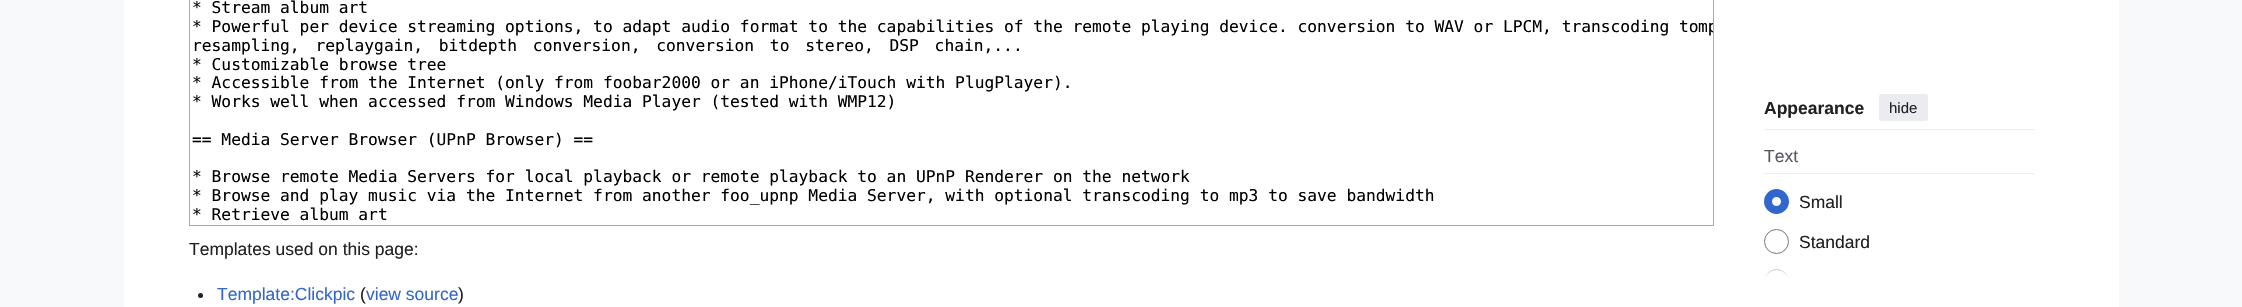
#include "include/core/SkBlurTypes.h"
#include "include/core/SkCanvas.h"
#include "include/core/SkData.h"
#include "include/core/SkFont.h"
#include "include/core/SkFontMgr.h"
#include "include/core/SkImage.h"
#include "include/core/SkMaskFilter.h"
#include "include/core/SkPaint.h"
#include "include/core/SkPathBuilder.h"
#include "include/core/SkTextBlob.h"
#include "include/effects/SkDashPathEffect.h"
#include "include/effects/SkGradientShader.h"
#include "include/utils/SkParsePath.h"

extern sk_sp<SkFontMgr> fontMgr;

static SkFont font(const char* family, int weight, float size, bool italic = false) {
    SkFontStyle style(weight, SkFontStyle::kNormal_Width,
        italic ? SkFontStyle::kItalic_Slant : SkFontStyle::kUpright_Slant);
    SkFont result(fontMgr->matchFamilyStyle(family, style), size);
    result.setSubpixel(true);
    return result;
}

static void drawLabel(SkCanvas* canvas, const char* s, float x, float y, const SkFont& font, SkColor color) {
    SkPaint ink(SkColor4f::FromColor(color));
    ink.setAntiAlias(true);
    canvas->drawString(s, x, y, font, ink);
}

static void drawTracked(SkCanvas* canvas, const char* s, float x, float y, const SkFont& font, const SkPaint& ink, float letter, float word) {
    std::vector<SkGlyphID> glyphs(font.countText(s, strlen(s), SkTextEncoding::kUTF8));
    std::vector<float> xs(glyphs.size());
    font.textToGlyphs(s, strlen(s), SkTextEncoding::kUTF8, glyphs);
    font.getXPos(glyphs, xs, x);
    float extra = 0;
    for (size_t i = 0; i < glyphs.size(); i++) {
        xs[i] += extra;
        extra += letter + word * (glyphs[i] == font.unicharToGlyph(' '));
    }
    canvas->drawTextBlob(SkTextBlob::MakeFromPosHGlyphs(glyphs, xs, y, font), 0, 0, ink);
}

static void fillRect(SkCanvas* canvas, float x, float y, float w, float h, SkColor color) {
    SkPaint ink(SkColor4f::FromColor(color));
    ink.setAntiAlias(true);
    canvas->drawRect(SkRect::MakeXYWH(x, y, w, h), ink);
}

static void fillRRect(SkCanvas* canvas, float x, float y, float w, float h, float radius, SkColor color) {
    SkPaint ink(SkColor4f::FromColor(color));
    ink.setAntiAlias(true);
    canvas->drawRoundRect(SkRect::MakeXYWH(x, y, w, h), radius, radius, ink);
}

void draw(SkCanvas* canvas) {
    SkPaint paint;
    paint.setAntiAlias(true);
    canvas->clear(0xFFF8F9FA);
    fillRect(canvas, 124, 0, 1995, 307, 0xFFFFFFFF);
    paint.setStroke(true);
    paint.setStrokeWidth(1);
    paint.setColor(0xFFA2A9B1);
    canvas->drawRect(SkRect::MakeXYWH(189.5f, -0.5f, 1524, 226), paint);
    SkFont font1 = font("DejaVu Sans Mono", 400, 16.25f);
    drawLabel(canvas, "* Stream album art", 192, 13, font1, 0xFF000000);
    drawLabel(canvas, "* Powerful per device streaming options, to adapt audio format to the capabilities of the remote playing device. conversion to WAV or LPCM, transcoding to", 192, 32, font1, 0xFF000000);
    canvas->save();
    canvas->clipRect(SkRect::MakeXYWH(190, 0, 1523, 225));
    drawLabel(canvas, "mp", 1698, 32, font1, 0xFF000000);
    canvas->restore();
    paint.setStroke(false);
    paint.setColor(0xFF000000);
    drawTracked(canvas, "resampling, replaygain, bitdepth conversion, conversion to stereo, DSP chain,...", 192, 51, font1, paint, 0, 6);
    drawLabel(canvas, "* Customizable browse tree", 192, 70, font1, 0xFF000000);
    drawLabel(canvas, "* Accessible from the Internet (only from foobar2000 or an iPhone/iTouch with PlugPlayer).", 192, 88, font1, 0xFF000000);
    drawLabel(canvas, "* Works well when accessed from Windows Media Player (tested with WMP12)", 192, 107, font1, 0xFF000000);
    drawLabel(canvas, "== Media Server Browser (UPnP Browser) ==", 192, 145, font1, 0xFF000000);
    drawLabel(canvas, "* Browse remote Media Servers for local playback or remote playback to an UPnP Renderer on the network", 192, 182, font1, 0xFF000000);
    drawLabel(canvas, "* Browse and play music via the Internet from another foo_upnp Media Server, with optional transcoding to mp3 to save bandwidth", 192, 201, font1, 0xFF000000);
    drawLabel(canvas, "* Retrieve album art", 192, 220, font1, 0xFF000000);
    SkFont font2 = font("Liberation Sans", 400, 17.5f);
    drawLabel(canvas, "Templates used on this page:", 189, 255, font2, 0xFF202122);
    paint.setColor(0xFF202122);
    canvas->drawCircle(200.5f, 295.5f, 2.5f, paint);
    drawLabel(canvas, "Template:Clickpic", 217, 300, font2, 0xFF3366CC);
    drawLabel(canvas, "(", 360, 300, font2, 0xFF202122);
    drawLabel(canvas, "view source", 366, 300, font2, 0xFF3366CC);
    drawLabel(canvas, ")", 458, 300, font2, 0xFF202122);
    fillRect(canvas, 1764, 129, 270, 1, 0xFFEAECF0);
    SkFont font3 = font("Liberation Sans", 700, 17.5f);
    drawLabel(canvas, "Appearance", 1764, 114, font3, 0xFF202122);
    fillRRect(canvas, 1879, 94, 49, 27, 2.5f, 0xFFEAECF0);
    SkFont font4 = font("Liberation Sans", 400, 15);
    drawLabel(canvas, "hide", 1889, 113, font4, 0xFF202122);
    fillRect(canvas, 1764, 173, 270, 1, 0xFFEAECF0);
    drawLabel(canvas, "Text", 1764, 162, font2, 0xFF54595D);
    paint.setStroke(true);
    paint.setStrokeWidth(8);
    paint.setColor(0xFF3366CC);
    canvas->drawCircle(1776.5f, 201.5f, 8.5f, paint);
    drawLabel(canvas, "Small", 1799, 208, font2, 0xFF202122);
    paint.setStrokeWidth(1);
    paint.setColor(0xFF72777D);
    canvas->drawCircle(1776.5f, 241.5f, 12, paint);
    drawLabel(canvas, "Standard", 1799, 248, font2, 0xFF202122);
    canvas->save();
    canvas->clipRect(SkRect::MakeXYWH(1744, 93, 310, 185));
    canvas->drawCircle(1776.5f, 281.5f, 12, paint);
    canvas->restore();
    paint.setStroke(false);
    {
        const SkColor colors[] = {0x00FFFFFF, 0xFFFFFFFF};
        const float stops[] = {0, 1};
        const SkPoint ends[] = {{1899, 257}, {1899, 278}};
        paint.setShader(SkGradientShader::MakeLinear(ends, colors, stops, 2, SkTileMode::kClamp));
        paint.setAlpha(255);
    }
    canvas->drawRect(SkRect::MakeXYWH(1764, 269, 25, 9), paint);
}
